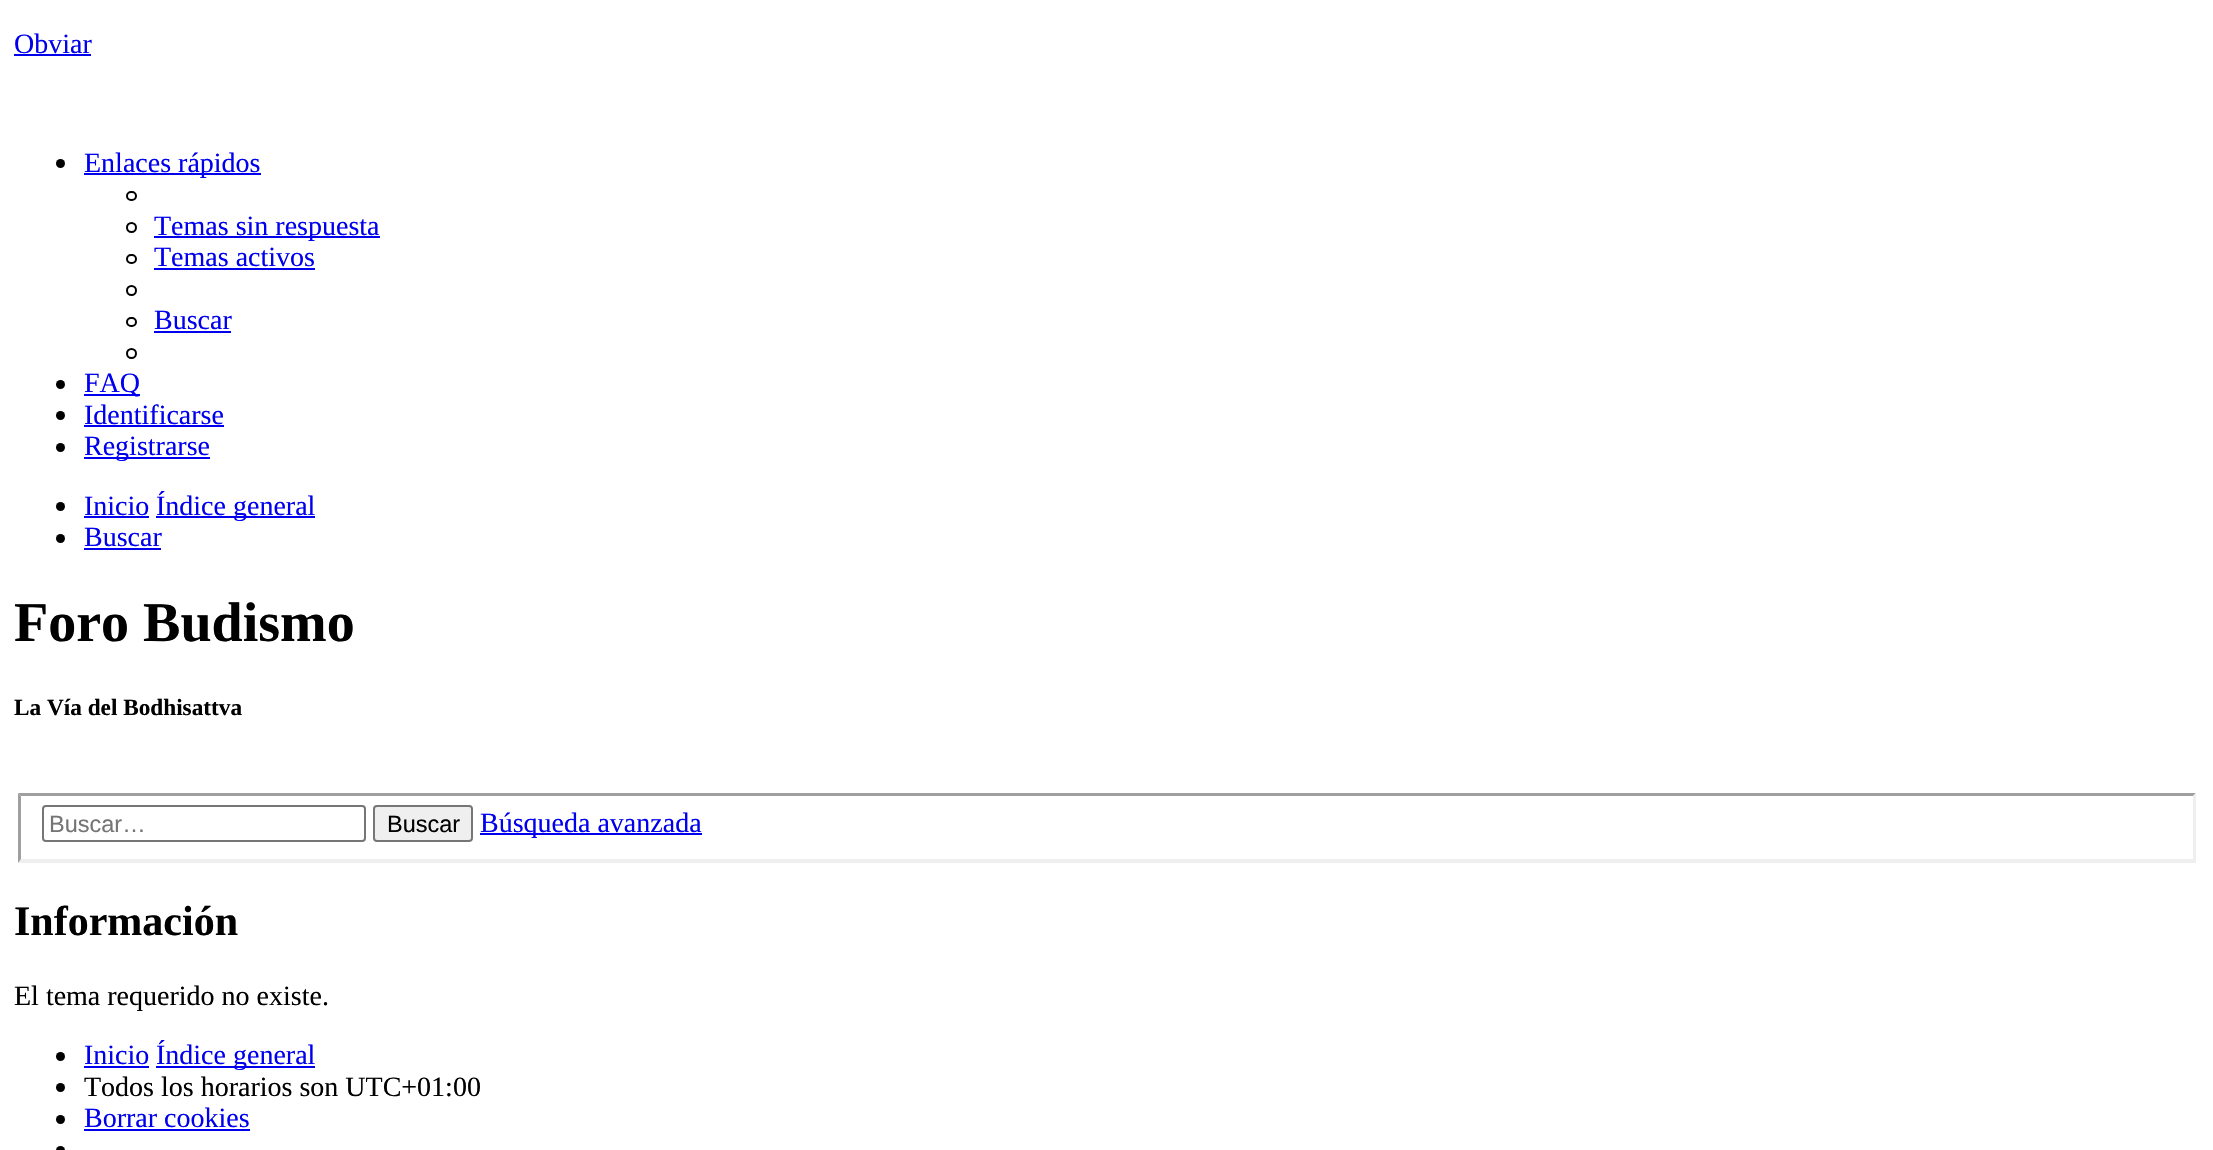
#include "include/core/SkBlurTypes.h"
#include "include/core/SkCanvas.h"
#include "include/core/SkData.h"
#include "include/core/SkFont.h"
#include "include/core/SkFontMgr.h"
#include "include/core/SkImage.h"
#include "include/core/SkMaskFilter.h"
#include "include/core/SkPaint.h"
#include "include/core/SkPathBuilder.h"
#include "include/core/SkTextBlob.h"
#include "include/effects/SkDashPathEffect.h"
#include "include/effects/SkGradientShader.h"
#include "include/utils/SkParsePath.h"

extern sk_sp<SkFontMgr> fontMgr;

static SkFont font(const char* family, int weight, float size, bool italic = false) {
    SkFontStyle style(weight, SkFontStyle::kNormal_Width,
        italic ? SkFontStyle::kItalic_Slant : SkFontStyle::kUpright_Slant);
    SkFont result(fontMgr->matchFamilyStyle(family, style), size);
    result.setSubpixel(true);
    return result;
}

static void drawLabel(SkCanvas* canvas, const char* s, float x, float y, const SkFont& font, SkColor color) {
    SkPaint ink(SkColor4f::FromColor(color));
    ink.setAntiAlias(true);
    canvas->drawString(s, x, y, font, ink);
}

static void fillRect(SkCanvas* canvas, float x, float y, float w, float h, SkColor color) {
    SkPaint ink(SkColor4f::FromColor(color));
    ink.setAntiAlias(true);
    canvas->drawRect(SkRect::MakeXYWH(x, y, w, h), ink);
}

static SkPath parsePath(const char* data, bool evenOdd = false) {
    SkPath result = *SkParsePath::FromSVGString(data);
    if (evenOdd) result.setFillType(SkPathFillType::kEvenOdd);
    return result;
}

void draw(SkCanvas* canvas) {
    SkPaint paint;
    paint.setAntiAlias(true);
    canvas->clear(0xFFFFFFFF);
    SkFont font1 = font("Liberation Serif", 400, 28);
    drawLabel(canvas, "Obviar", 14, 53, font1, 0xFF0000EE);
    fillRect(canvas, 14, 54, 77, 2, 0xFF0000EE);
    paint.setColor(0xFF000000);
    canvas->drawCircle(60.5f, 163.5f, 4.5f, paint);
    fillRect(canvas, 84, 173, 177, 2, 0xFF0000EE);
    drawLabel(canvas, "Enlaces rápidos", 84, 172, font1, 0xFF0000EE);
    paint.setStroke(true);
    paint.setStrokeWidth(2);
    canvas->drawRoundRect(SkRect::MakeXYWH(127, 192, 9, 8), 4, 4, paint);
    canvas->drawCircle(131.5f, 227.5f, 4.5f, paint);
    fillRect(canvas, 154, 236, 226, 2, 0xFF0000EE);
    drawLabel(canvas, "Temas sin respuesta", 154, 235, font1, 0xFF0000EE);
    canvas->drawRoundRect(SkRect::MakeXYWH(127, 255, 9, 8), 4, 4, paint);
    drawLabel(canvas, "Temas activos", 154, 266, font1, 0xFF0000EE);
    fillRect(canvas, 154, 268, 161, 2, 0xFF0000EE);
    canvas->drawCircle(131.5f, 290.5f, 4.5f, paint);
    canvas->drawRoundRect(SkRect::MakeXYWH(127, 318, 9, 8), 4, 4, paint);
    drawLabel(canvas, "Buscar", 154, 329, font1, 0xFF0000EE);
    fillRect(canvas, 154, 331, 77, 2, 0xFF0000EE);
    canvas->drawCircle(131.5f, 353.5f, 4.5f, paint);
    paint.setStroke(false);
    canvas->drawCircle(60.5f, 384.5f, 4.5f, paint);
    fillRect(canvas, 84, 394, 56, 2, 0xFF0000EE);
    drawLabel(canvas, "FAQ", 84, 392, font1, 0xFF0000EE);
    canvas->drawCircle(60.5f, 415.5f, 4.5f, paint);
    drawLabel(canvas, "Identificarse", 84, 424, font1, 0xFF0000EE);
    fillRect(canvas, 84, 425, 140, 2, 0xFF0000EE);
    canvas->drawCircle(60.5f, 447.5f, 4.5f, paint);
    fillRect(canvas, 84, 457, 126, 2, 0xFF0000EE);
    drawLabel(canvas, "Registrarse", 84, 455, font1, 0xFF0000EE);
    canvas->drawCircle(60.5f, 506.5f, 4.5f, paint);
    drawLabel(canvas, "Inicio", 84, 515, font1, 0xFF0000EE);
    fillRect(canvas, 84, 516, 65, 2, 0xFF0000EE);
    fillRect(canvas, 156, 516, 159, 2, 0xFF0000EE);
    drawLabel(canvas, "Índice general", 156, 515, font1, 0xFF0000EE);
    canvas->drawCircle(60.5f, 538.5f, 4.5f, paint);
    drawLabel(canvas, "Buscar", 84, 546, font1, 0xFF0000EE);
    fillRect(canvas, 84, 548, 77, 2, 0xFF0000EE);
    SkFont font2 = font("Liberation Serif", 700, 56);
    drawLabel(canvas, "Foro Budismo", 14, 641, font2, 0xFF000000);
    SkFont font3 = font("Liberation Serif", 700, 23.25f);
    drawLabel(canvas, "La Vía del Bodhisattva", 14, 715, font3, 0xFF000000);
    paint.setColor(0xFF9F9F9F);
    canvas->drawPath(parsePath("M18 793H2196L2193 796H21Z"), paint);
    paint.setColor(0xFFEFEFEF);
    canvas->drawPath(parsePath("M2196 793V863L2193 859V796Z"), paint);
    canvas->drawPath(parsePath("M2196 863H18L21 859H2193Z"), paint);
    paint.setColor(0xFF9F9F9F);
    canvas->drawPath(parsePath("M18 863V793L21 796V859Z"), paint);
    paint.setStroke(true);
    paint.setColor(0xFF767676);
    canvas->drawRoundRect(SkRect::MakeXYWH(43, 806, 322, 35), 3, 3, paint);
    SkFont font4 = font("Liberation Sans", 400, 23.5f);
    drawLabel(canvas, "Buscar…", 49, 832, font4, 0xFF757575);
    paint.setStroke(false);
    paint.setColor(0xFFEFEFEF);
    canvas->drawRoundRect(SkRect::MakeXYWH(374, 806, 98, 35), 3, 3, paint);
    paint.setStroke(true);
    paint.setColor(0xFF767676);
    canvas->drawRoundRect(SkRect::MakeXYWH(374, 806, 98, 35), 3, 3, paint);
    drawLabel(canvas, "Buscar", 387, 832, font4, 0xFF000000);
    fillRect(canvas, 480, 833, 222, 2, 0xFF0000EE);
    drawLabel(canvas, "Búsqueda avanzada", 480, 832, font1, 0xFF0000EE);
    SkFont font5 = font("Liberation Serif", 700, 42);
    drawLabel(canvas, "Información", 14, 935, font5, 0xFF000000);
    drawLabel(canvas, "El tema requerido no existe.", 14, 1005, font1, 0xFF000000);
    paint.setStroke(false);
    paint.setColor(0xFF000000);
    canvas->drawCircle(60.5f, 1056.5f, 4.5f, paint);
    drawLabel(canvas, "Inicio", 84, 1064, font1, 0xFF0000EE);
    fillRect(canvas, 84, 1066, 65, 2, 0xFF0000EE);
    fillRect(canvas, 156, 1066, 159, 2, 0xFF0000EE);
    drawLabel(canvas, "Índice general", 156, 1064, font1, 0xFF0000EE);
    canvas->drawCircle(60.5f, 1087.5f, 4.5f, paint);
    drawLabel(canvas, "Todos los horarios son UTC+01:00", 84, 1096, font1, 0xFF000000);
    canvas->drawCircle(60.5f, 1119.5f, 4.5f, paint);
    drawLabel(canvas, "Borrar cookies", 84, 1127, font1, 0xFF0000EE);
    fillRect(canvas, 84, 1129, 166, 2, 0xFF0000EE);
    canvas->drawCircle(60.5f, 1150.5f, 4.5f, paint);
}
